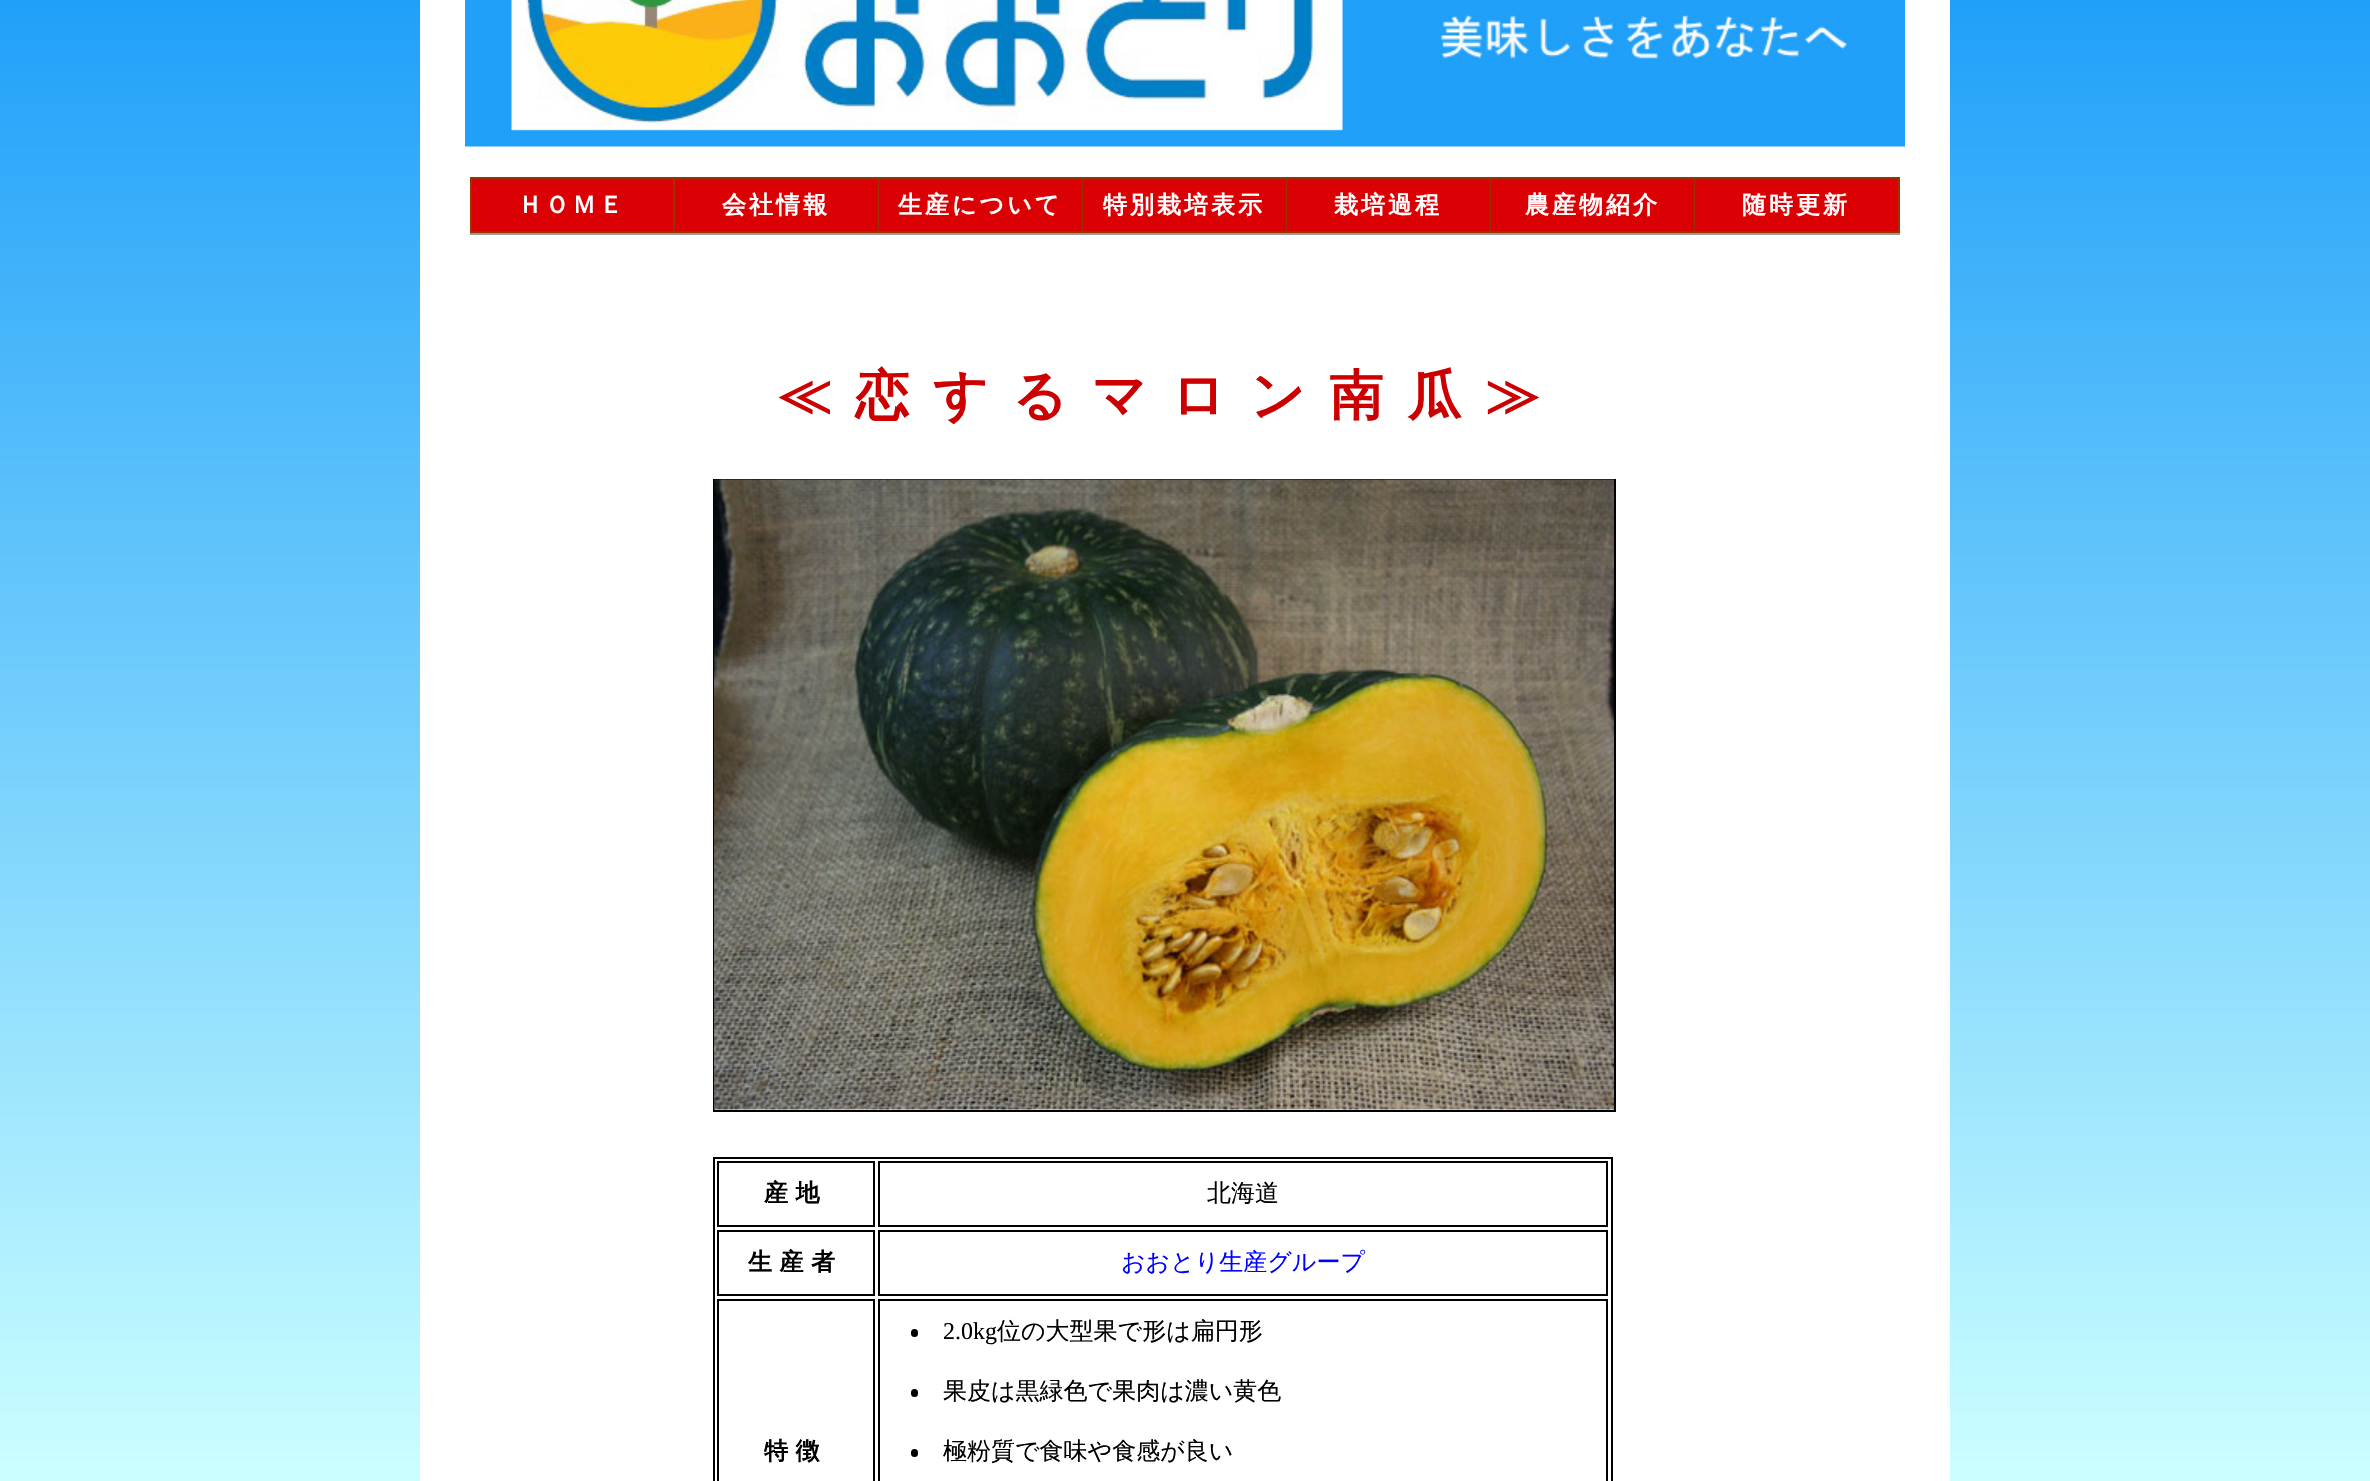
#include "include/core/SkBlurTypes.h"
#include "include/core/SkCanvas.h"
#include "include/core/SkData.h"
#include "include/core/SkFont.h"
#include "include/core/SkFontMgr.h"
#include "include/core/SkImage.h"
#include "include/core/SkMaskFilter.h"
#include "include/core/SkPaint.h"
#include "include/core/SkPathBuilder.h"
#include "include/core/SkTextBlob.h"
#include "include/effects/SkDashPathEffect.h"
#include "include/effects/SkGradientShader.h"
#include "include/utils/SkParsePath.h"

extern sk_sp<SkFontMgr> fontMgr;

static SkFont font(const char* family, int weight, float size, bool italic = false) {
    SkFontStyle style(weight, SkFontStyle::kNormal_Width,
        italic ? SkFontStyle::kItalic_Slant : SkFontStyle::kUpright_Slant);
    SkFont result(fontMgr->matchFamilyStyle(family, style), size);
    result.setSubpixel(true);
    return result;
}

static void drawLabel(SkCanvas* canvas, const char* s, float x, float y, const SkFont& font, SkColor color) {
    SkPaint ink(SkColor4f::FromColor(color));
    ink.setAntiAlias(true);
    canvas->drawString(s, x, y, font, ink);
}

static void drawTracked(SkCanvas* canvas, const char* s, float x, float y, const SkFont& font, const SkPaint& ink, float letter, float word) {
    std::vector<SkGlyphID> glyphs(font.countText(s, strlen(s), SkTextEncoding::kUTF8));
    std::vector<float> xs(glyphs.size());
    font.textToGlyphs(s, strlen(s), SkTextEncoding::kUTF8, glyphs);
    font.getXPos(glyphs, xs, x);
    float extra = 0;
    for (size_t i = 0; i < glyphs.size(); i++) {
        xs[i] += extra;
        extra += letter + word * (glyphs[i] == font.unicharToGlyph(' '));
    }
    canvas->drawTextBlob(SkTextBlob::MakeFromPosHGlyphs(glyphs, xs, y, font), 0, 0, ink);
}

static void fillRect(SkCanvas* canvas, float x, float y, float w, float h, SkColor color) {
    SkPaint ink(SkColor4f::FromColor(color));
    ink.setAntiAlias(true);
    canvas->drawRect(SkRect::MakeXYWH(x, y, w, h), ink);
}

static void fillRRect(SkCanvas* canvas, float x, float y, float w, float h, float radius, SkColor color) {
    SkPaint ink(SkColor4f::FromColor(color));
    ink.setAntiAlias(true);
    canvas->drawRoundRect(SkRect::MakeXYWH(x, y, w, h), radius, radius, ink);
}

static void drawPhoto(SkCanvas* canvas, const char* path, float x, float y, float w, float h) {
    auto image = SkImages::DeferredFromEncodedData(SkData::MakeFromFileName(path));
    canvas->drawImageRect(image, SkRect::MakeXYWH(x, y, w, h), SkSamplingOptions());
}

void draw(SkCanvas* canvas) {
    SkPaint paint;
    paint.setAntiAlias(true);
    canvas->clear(0xFFFFFFFF);
    {
        const SkColor colors[] = {0xFF20A0F9, 0xFFCCFFFF};
        const float stops[] = {0, 1};
        const SkPoint ends[] = {{1185, 0}, {1185, 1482}};
        paint.setShader(SkGradientShader::MakeLinear(ends, colors, stops, 2, SkTileMode::kClamp));
        paint.setAlpha(255);
    }
    canvas->drawRect(SkRect::MakeXYWH(0, 0, 2370, 1481), paint);
    fillRect(canvas, 420, 0, 1530, 1481, 0xFFFFFFFF);
    drawPhoto(canvas, "assets/img1.png", 465, 0, 1440, 147);
    paint.setShader(nullptr);
    paint.setColor(0xFFDB0003);
    canvas->drawRect(SkRect::MakeXYWH(471, 178, 203, 54), paint);
    paint.setStroke(true);
    paint.setStrokeWidth(2);
    paint.setColor(0xFF993300);
    canvas->drawRect(SkRect::MakeXYWH(471, 178, 203, 54), paint);
    SkFont font1 = font("WenQuanYi Zen Hei", 700, 24);
    paint.setStroke(false);
    paint.setColor(0xFFFFFFFF);
    drawTracked(canvas, "ＨＯＭＥ", 518, 213, font1, paint, 3, 0);
    fillRect(canvas, 470, 233, 1225, 2, 0xFF999999);
    fillRect(canvas, 675, 179, 203, 52, 0xFFDB0003);
    fillRect(canvas, 675, 177, 1224, 2, 0xFF993300);
    fillRect(canvas, 878, 177, 1, 56, 0xFF993300);
    fillRect(canvas, 675, 231, 204, 2, 0xFF993300);
    drawTracked(canvas, "会社情報", 722, 213, font1, paint, 3, 0);
    fillRect(canvas, 879, 179, 203, 52, 0xFFDB0003);
    fillRect(canvas, 1082, 177, 1, 56, 0xFF993300);
    fillRect(canvas, 879, 231, 204, 2, 0xFF993300);
    drawTracked(canvas, "生産について", 898, 213, font1, paint, 3, 0);
    fillRect(canvas, 1083, 179, 203, 52, 0xFFDB0003);
    fillRect(canvas, 1286, 177, 1, 56, 0xFF993300);
    fillRect(canvas, 1083, 231, 204, 2, 0xFF993300);
    drawTracked(canvas, "特別栽培表示", 1103, 213, font1, paint, 3, 0);
    fillRect(canvas, 1287, 179, 203, 52, 0xFFDB0003);
    fillRect(canvas, 1490, 177, 1, 56, 0xFF993300);
    fillRect(canvas, 1287, 231, 204, 2, 0xFF993300);
    drawTracked(canvas, "栽培過程", 1334, 213, font1, paint, 3, 0);
    fillRect(canvas, 1491, 179, 203, 52, 0xFFDB0003);
    fillRect(canvas, 1694, 177, 1, 56, 0xFF993300);
    fillRect(canvas, 1491, 231, 204, 2, 0xFF993300);
    drawTracked(canvas, "農産物紹介", 1525, 213, font1, paint, 3, 0);
    fillRect(canvas, 1695, 179, 203, 52, 0xFFDB0003);
    fillRect(canvas, 1898, 177, 2, 56, 0xFF993300);
    fillRect(canvas, 1695, 231, 204, 2, 0xFF993300);
    drawTracked(canvas, "随時更新", 1742, 213, font1, paint, 3, 0);
    fillRect(canvas, 1694, 233, 206, 2, 0xFF999999);
    SkFont font2 = font("WenQuanYi Zen Hei", 700, 54);
    paint.setColor(0xFFCC0000);
    drawTracked(canvas, "≪恋するマロン南瓜≫", 777, 414, font2, paint, 24, 0);
    paint.setStroke(true);
    paint.setColor(0xFF000000);
    canvas->drawRect(SkRect::MakeXYWH(714, 480, 901, 631), paint);
    drawPhoto(canvas, "assets/img2.png", 714, 479, 900, 631);
    canvas->drawRect(SkRect::MakeXYWH(714, 1158, 898, 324), paint);
    canvas->drawRect(SkRect::MakeXYWH(718, 1162, 156, 64), paint);
    paint.setStroke(false);
    drawTracked(canvas, "産地", 764, 1201, font1, paint, 7.5f, 0);
    paint.setStroke(true);
    canvas->drawRect(SkRect::MakeXYWH(879, 1162, 728, 64), paint);
    SkFont font3 = font("WenQuanYi Zen Hei", 500, 24);
    drawLabel(canvas, "北海道", 1207, 1201, font3, 0xFF000000);
    canvas->drawRect(SkRect::MakeXYWH(718, 1231, 156, 64), paint);
    paint.setStroke(false);
    drawTracked(canvas, "生産者", 748, 1270, font1, paint, 7.5f, 0);
    paint.setStroke(true);
    canvas->drawRect(SkRect::MakeXYWH(879, 1231, 728, 64), paint);
    drawLabel(canvas, "おおとり生産グループ", 1121, 1270, font3, 0xFF0000FF);
    canvas->drawRect(SkRect::MakeXYWH(718, 1300, 156, 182), paint);
    paint.setStroke(false);
    drawTracked(canvas, "特徴", 764, 1459, font1, paint, 7.5f, 0);
    paint.setStroke(true);
    canvas->drawRect(SkRect::MakeXYWH(879, 1300, 728, 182), paint);
    fillRRect(canvas, 911, 1329, 7, 8, 3.5f, 0xFF000000);
    SkFont font4 = font("Liberation Serif", 400, 24);
    drawLabel(canvas, "2.0kg", 943, 1339, font4, 0xFF000000);
    drawLabel(canvas, "位の大型果で形は扁円形", 997, 1339, font3, 0xFF000000);
    fillRRect(canvas, 911, 1389, 7, 8, 3.5f, 0xFF000000);
    drawLabel(canvas, "果皮は黒緑色で果肉は濃い黄色", 943, 1399, font3, 0xFF000000);
    fillRRect(canvas, 911, 1449, 7, 8, 3.5f, 0xFF000000);
    drawLabel(canvas, "極粉質で食味や食感が良い", 943, 1459, font3, 0xFF000000);
}
